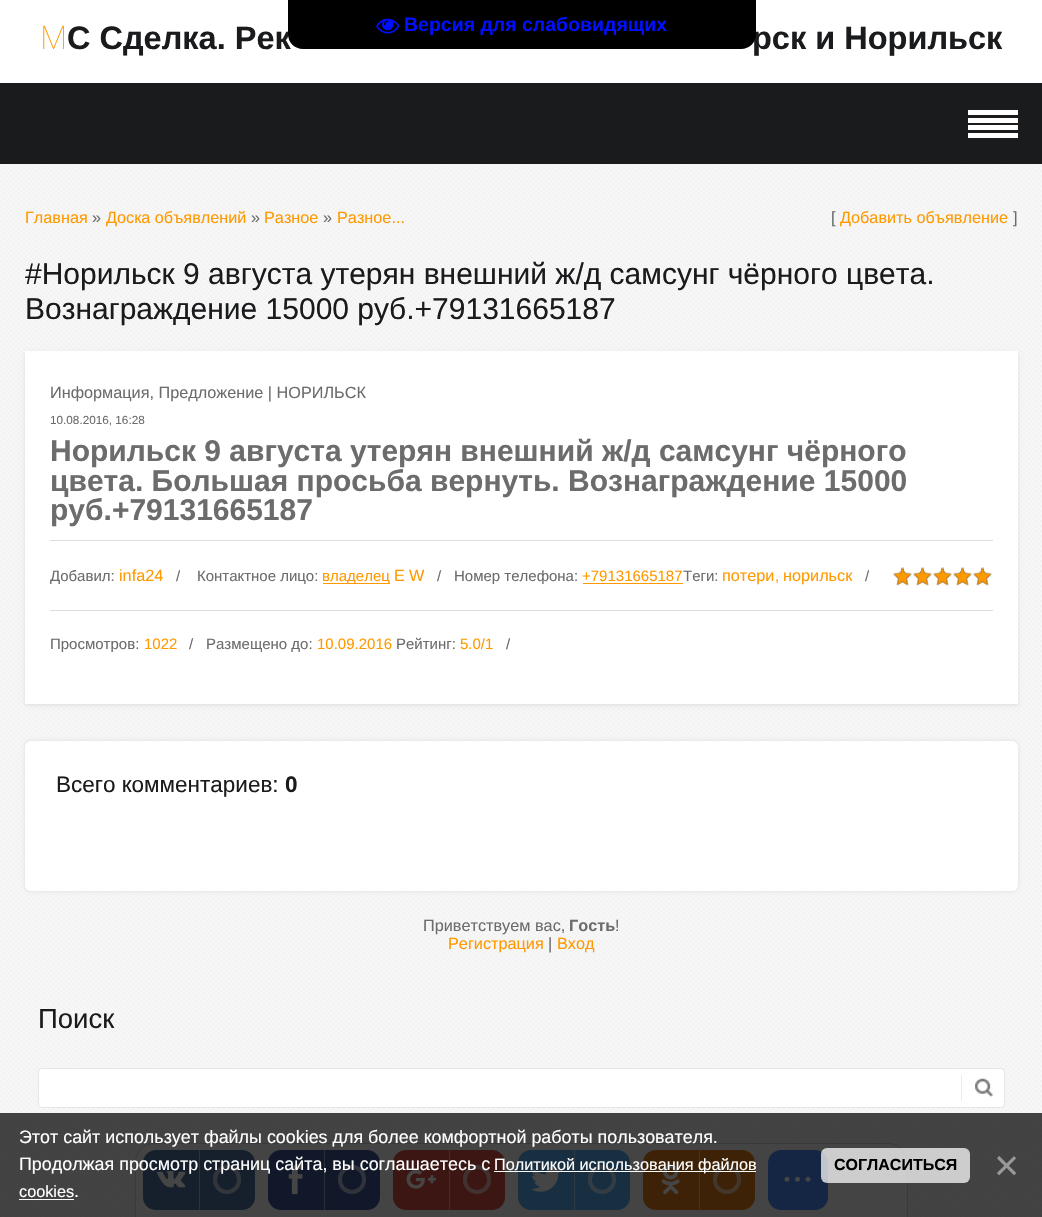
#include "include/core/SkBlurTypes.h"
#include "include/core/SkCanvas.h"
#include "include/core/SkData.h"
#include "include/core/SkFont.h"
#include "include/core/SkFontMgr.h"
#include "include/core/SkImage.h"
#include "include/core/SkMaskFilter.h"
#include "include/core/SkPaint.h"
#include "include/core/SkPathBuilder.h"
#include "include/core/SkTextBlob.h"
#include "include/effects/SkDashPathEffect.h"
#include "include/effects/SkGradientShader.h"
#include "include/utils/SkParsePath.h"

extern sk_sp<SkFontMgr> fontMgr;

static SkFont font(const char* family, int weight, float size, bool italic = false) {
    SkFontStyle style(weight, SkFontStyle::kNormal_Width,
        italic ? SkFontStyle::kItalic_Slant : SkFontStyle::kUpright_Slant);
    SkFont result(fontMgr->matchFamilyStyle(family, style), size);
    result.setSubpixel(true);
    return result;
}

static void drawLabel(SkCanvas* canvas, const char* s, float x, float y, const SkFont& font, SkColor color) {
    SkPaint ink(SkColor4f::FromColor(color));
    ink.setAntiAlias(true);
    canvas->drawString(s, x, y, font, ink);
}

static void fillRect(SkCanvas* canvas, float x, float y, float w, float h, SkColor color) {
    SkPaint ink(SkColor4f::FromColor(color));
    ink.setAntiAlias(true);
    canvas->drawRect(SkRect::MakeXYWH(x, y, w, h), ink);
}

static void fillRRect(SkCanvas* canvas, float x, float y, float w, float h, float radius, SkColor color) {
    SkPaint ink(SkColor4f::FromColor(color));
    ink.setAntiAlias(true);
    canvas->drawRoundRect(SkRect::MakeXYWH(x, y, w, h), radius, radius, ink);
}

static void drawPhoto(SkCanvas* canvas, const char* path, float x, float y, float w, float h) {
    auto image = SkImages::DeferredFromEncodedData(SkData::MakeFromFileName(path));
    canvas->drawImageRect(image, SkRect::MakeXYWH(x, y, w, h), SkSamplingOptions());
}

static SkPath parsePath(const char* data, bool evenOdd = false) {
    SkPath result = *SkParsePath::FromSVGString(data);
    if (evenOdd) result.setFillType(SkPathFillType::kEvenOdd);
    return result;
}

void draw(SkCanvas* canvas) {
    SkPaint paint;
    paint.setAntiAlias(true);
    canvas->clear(0xFFFFFFFF);
    drawPhoto(canvas, "assets/img1.png", 0, 164, 1042, 1053);
    SkFont font1 = font("Liberation Sans", 700, 32.5f);
    drawLabel(canvas, "С Сделка. Рек", 67, 49, font1, 0xFF1A1B1D);
    drawLabel(canvas, "рск и Норильск", 752, 49, font1, 0xFF1A1B1D);
    paint.setColor(0xFF000000);
    canvas->drawPath(parsePath("M288 0H756V34C756 42.5 749.5 49 741 49H303C294.5 49 288 42.5 288 34Z"), paint);
    drawPhoto(canvas, "assets/img2.png", 376, 18, 23, 16);
    SkFont font2 = font("Liberation Sans", 700, 19.5f);
    drawLabel(canvas, "Версия для слабовидящих", 404, 31, font2, 0xFF000FFF);
    SkFont font3 = font("Noto Sans", 100, 32.5f);
    drawLabel(canvas, "М", 40, 49, font3, 0xFFFF9900);
    fillRect(canvas, 0, 83, 1042, 81, 0xFF1A1B1D);
    fillRect(canvas, 968, 110, 50, 5, 0xFFFFFFFF);
    fillRect(canvas, 968, 118, 50, 5, 0xFFFFFFFF);
    fillRect(canvas, 968, 125, 50, 5, 0xFFFFFFFF);
    fillRect(canvas, 968, 133, 50, 5, 0xFFFFFFFF);
    SkFont font4 = font("Liberation Sans", 400, 16.25f);
    drawLabel(canvas, "Главная", 25, 223, font4, 0xFFFF9900);
    drawLabel(canvas, "»", 92, 223, font4, 0xFF6C6C6C);
    drawLabel(canvas, "Доска объявлений", 106, 223, font4, 0xFFFF9900);
    drawLabel(canvas, "»", 251, 223, font4, 0xFF6C6C6C);
    drawLabel(canvas, "Разное", 264, 223, font4, 0xFFFF9900);
    drawLabel(canvas, "»", 323, 223, font4, 0xFF6C6C6C);
    drawLabel(canvas, "Разное...", 337, 223, font4, 0xFFFF9900);
    drawLabel(canvas, "[", 831, 223, font4, 0xFF6C6C6C);
    drawLabel(canvas, "Добавить объявление", 840, 223, font4, 0xFFFF9900);
    drawLabel(canvas, "]", 1013, 223, font4, 0xFF6C6C6C);
    SkFont font5 = font("Liberation Sans", 400, 30);
    drawLabel(canvas, "#Норильск 9 августа утерян внешний ж/д самсунг чёрного цвета.", 25, 284, font5, 0xFF1A1B1D);
    drawLabel(canvas, "Вознаграждение 15000 руб.+79131665187", 25, 319, font5, 0xFF1A1B1D);
    paint.setColor(0xFFDDDDDD);
    paint.setMaskFilter(SkMaskFilter::MakeBlur(kNormal_SkBlurStyle, 2));
    canvas->drawRect(SkRect::MakeXYWH(25, 353, 993, 352), paint);
    paint.setMaskFilter(nullptr);
    fillRect(canvas, 25, 351, 993, 353, 0xFFFFFFFF);
    drawLabel(canvas, "Информация, Предложение | НОРИЛЬСК", 50, 398, font4, 0xFF6C6C6C);
    SkFont font6 = font("Liberation Sans", 400, 11.75f);
    drawLabel(canvas, "10.08.2016, 16:28", 50, 424, font6, 0xFF6C6C6C);
    SkFont font7 = font("Liberation Sans", 700, 30);
    drawLabel(canvas, "Норильск 9 августа утерян внешний ж/д самсунг чёрного", 50, 461, font7, 0xFF6C6C6C);
    drawLabel(canvas, "цвета. Большая просьба вернуть. Вознаграждение 15000", 50, 491, font7, 0xFF6C6C6C);
    drawLabel(canvas, "руб.+79131665187", 50, 520, font7, 0xFF6C6C6C);
    fillRect(canvas, 50, 540, 943, 1, 0xFFDDDDDD);
    SkFont font8 = font("Liberation Sans", 400, 15);
    drawLabel(canvas, "Добавил:", 50, 581, font8, 0xFF6C6C6C);
    drawLabel(canvas, "infa24", 119, 581, font4, 0xFFFF9900);
    drawLabel(canvas, "/", 176, 581, font8, 0xFF6C6C6C);
    drawLabel(canvas, "Контактное лицо:", 197, 581, font8, 0xFF6C6C6C);
    fillRect(canvas, 323, 583, 67, 1, 0xFFFF9900);
    drawLabel(canvas, "владелец", 322, 581, font8, 0xFFFF9900);
    drawLabel(canvas, "E", 394, 581, font4, 0xFFFF9900);
    drawLabel(canvas, "W", 409, 581, font4, 0xFFFF9900);
    drawLabel(canvas, "/", 437, 581, font8, 0xFF6C6C6C);
    drawLabel(canvas, "Номер телефона:", 454, 581, font8, 0xFF6C6C6C);
    drawLabel(canvas, "+79131665187", 582, 581, font8, 0xFFFF9900);
    fillRect(canvas, 583, 583, 100, 1, 0xFFFF9900);
    drawLabel(canvas, "Теги:", 683, 581, font8, 0xFF6C6C6C);
    drawLabel(canvas, "потери", 722, 581, font4, 0xFFFF9900);
    drawLabel(canvas, ",", 775, 581, font8, 0xFFFF9900);
    drawLabel(canvas, "норильск", 783, 581, font4, 0xFFFF9900);
    drawLabel(canvas, "/", 865, 581, font8, 0xFF6C6C6C);
    drawPhoto(canvas, "assets/img3.png", 893, 567, 99, 19);
    drawPhoto(canvas, "assets/img4.png", 893, 567, 99, 19);
    fillRect(canvas, 50, 610, 943, 1, 0xFFDDDDDD);
    drawLabel(canvas, "Просмотров:", 50, 649, font8, 0xFF6C6C6C);
    drawLabel(canvas, "1022", 144, 649, font8, 0xFFFF9900);
    drawLabel(canvas, "/", 189, 649, font8, 0xFF6C6C6C);
    drawLabel(canvas, "Размещено до:", 206, 649, font8, 0xFF6C6C6C);
    drawLabel(canvas, "10.09.2016", 317, 649, font8, 0xFFFF9900);
    drawLabel(canvas, "Рейтинг:", 396, 649, font8, 0xFF6C6C6C);
    drawLabel(canvas, "5.0/1", 460, 649, font8, 0xFFFF9900);
    drawLabel(canvas, "/", 506, 649, font8, 0xFF6C6C6C);
    paint.setMaskFilter(SkMaskFilter::MakeBlur(kNormal_SkBlurStyle, 2));
    canvas->drawRoundRect(SkRect::MakeXYWH(25, 741, 993, 150), 6, 6, paint);
    paint.setMaskFilter(nullptr);
    fillRRect(canvas, 25, 741, 993, 150, 6, 0xFFFFFFFF);
    SkFont font9 = font("Liberation Sans", 400, 22.5f);
    drawLabel(canvas, "Всего комментариев:", 56, 792, font9, 0xFF1A1B1D);
    SkFont font10 = font("Liberation Sans", 700, 22.5f);
    drawLabel(canvas, "0", 285, 792, font10, 0xFF1A1B1D);
    drawLabel(canvas, "Приветствуем вас,", 423, 931, font4, 0xFF6C6C6C);
    SkFont font11 = font("Liberation Sans", 700, 16.25f);
    drawLabel(canvas, "Гость", 569, 931, font11, 0xFF6C6C6C);
    drawLabel(canvas, "!", 615, 931, font4, 0xFF6C6C6C);
    drawLabel(canvas, "Регистрация", 448, 949, font4, 0xFFFF9900);
    drawLabel(canvas, "|", 548, 949, font4, 0xFF6C6C6C);
    drawLabel(canvas, "Вход", 557, 949, font4, 0xFFFF9900);
    SkFont font12 = font("Liberation Sans", 400, 27.5f);
    drawLabel(canvas, "Поиск", 38, 1028, font12, 0xFF1A1B1D);
    paint.setColor(0xFFFFFFFF);
    canvas->drawRoundRect(SkRect::MakeXYWH(38.5f, 1068.5f, 966, 39), 3.5f, 3.5f, paint);
    paint.setStroke(true);
    paint.setStrokeWidth(1);
    paint.setColor(0xFFE6E6E6);
    canvas->drawRoundRect(SkRect::MakeXYWH(38.5f, 1068.5f, 966, 39), 3.5f, 3.5f, paint);
    drawPhoto(canvas, "assets/img5.png", 975, 1078, 18, 19);
    fillRect(canvas, 961, 1075, 1, 26, 0xFFEBEBEB);
    paint.setStroke(false);
    paint.setColor(0xFFFAFAFA);
    canvas->drawPath(parsePath("M154 1143.5H889C899 1143.5 907.5 1152 907.5 1162V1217.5H135.5V1162C135.5 1152 144 1143.5 154 1143.5Z"), paint);
    paint.setStroke(true);
    paint.setColor(0xFFD4D4D4);
    canvas->drawPath(parsePath("M154 1143.5H889C899 1143.5 907.5 1152 907.5 1162V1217.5H135.5V1162C135.5 1152 144 1143.5 154 1143.5Z"), paint);
    fillRRect(canvas, 143, 1150, 112, 60, 13, 0xFF4D75A3);
    drawPhoto(canvas, "assets/img6.png", 156, 1171, 30, 17);
    fillRect(canvas, 199, 1150, 1, 60, 0xFFA6BAD1);
    paint.setStrokeWidth(4);
    paint.setColor(0xFFB8C8DA);
    canvas->drawRoundRect(SkRect::MakeXYWH(215, 1167, 24, 25), 12, 12, paint);
    fillRRect(canvas, 268, 1150, 112, 60, 13, 0xFF3B5998);
    drawPhoto(canvas, "assets/img7.png", 288, 1164, 16, 31);
    fillRect(canvas, 324, 1150, 1, 60, 0xFF9DACCC);
    paint.setColor(0xFFB1BDD6);
    canvas->drawRoundRect(SkRect::MakeXYWH(340, 1167, 24, 25), 12, 12, paint);
    fillRRect(canvas, 393, 1150, 112, 60, 13, 0xFFDC4E41);
    drawPhoto(canvas, "assets/img8.png", 406, 1169, 30, 20);
    fillRect(canvas, 449, 1150, 1, 60, 0xFFEEA7A0);
    paint.setColor(0xFFF1B8B3);
    canvas->drawRoundRect(SkRect::MakeXYWH(465, 1167, 24, 25), 12, 12, paint);
    fillRRect(canvas, 518, 1150, 112, 60, 13, 0xFF55ACEE);
    drawPhoto(canvas, "assets/img9.png", 531, 1166, 31, 26);
    fillRect(canvas, 574, 1150, 1, 60, 0xFFAAD6F7);
    paint.setColor(0xFFBBDEF8);
    canvas->drawRoundRect(SkRect::MakeXYWH(590, 1167, 24, 25), 12, 12, paint);
    fillRRect(canvas, 643, 1150, 112, 60, 13, 0xFFE67E17);
    drawPhoto(canvas, "assets/img10.png", 661, 1164, 19, 31);
    fillRect(canvas, 699, 1150, 1, 60, 0xFFF3BF8B);
    paint.setColor(0xFFF5CBA2);
    canvas->drawRoundRect(SkRect::MakeXYWH(715, 1167, 24, 25), 12, 12, paint);
    fillRRect(canvas, 768, 1150, 60, 60, 13, 0xFF498BFA);
    drawPhoto(canvas, "assets/img11.png", 784, 1176, 27, 6);
    fillRect(canvas, 0, 1113, 1042, 104, 0xBA000000);
    SkFont font13 = font("Liberation Sans", 400, 17.9f);
    drawLabel(canvas, "Этот сайт использует файлы cookies для более комфортной работы пользователя.", 19, 1143, font13, 0xFFFFFFFF);
    drawLabel(canvas, "Продолжая просмотр страниц сайта, вы соглашаетесь с", 19, 1170, font13, 0xFFFFFFFF);
    fillRect(canvas, 494, 1171, 262, 1, 0xFFFFFFFF);
    drawLabel(canvas, "Политикой использования файлов", 494, 1170, font4, 0xFFFFFFFF);
    drawLabel(canvas, "cookies", 19, 1197, font4, 0xFFFFFFFF);
    fillRect(canvas, 19, 1199, 55, 1, 0xFFFFFFFF);
    drawLabel(canvas, ".", 74, 1197, font13, 0xFFFFFFFF);
    fillRRect(canvas, 821, 1148, 149, 35, 6, 0xBAFFFFFF);
    SkFont font14 = font("Liberation Sans", 700, 16);
    drawLabel(canvas, "СОГЛАСИТЬСЯ", 834, 1170, font14, 0xFF000000);
    SkFont font15 = font("Liberation Sans", 400, 43);
    drawLabel(canvas, "×", 994, 1180, font15, 0xFF999999);
}
